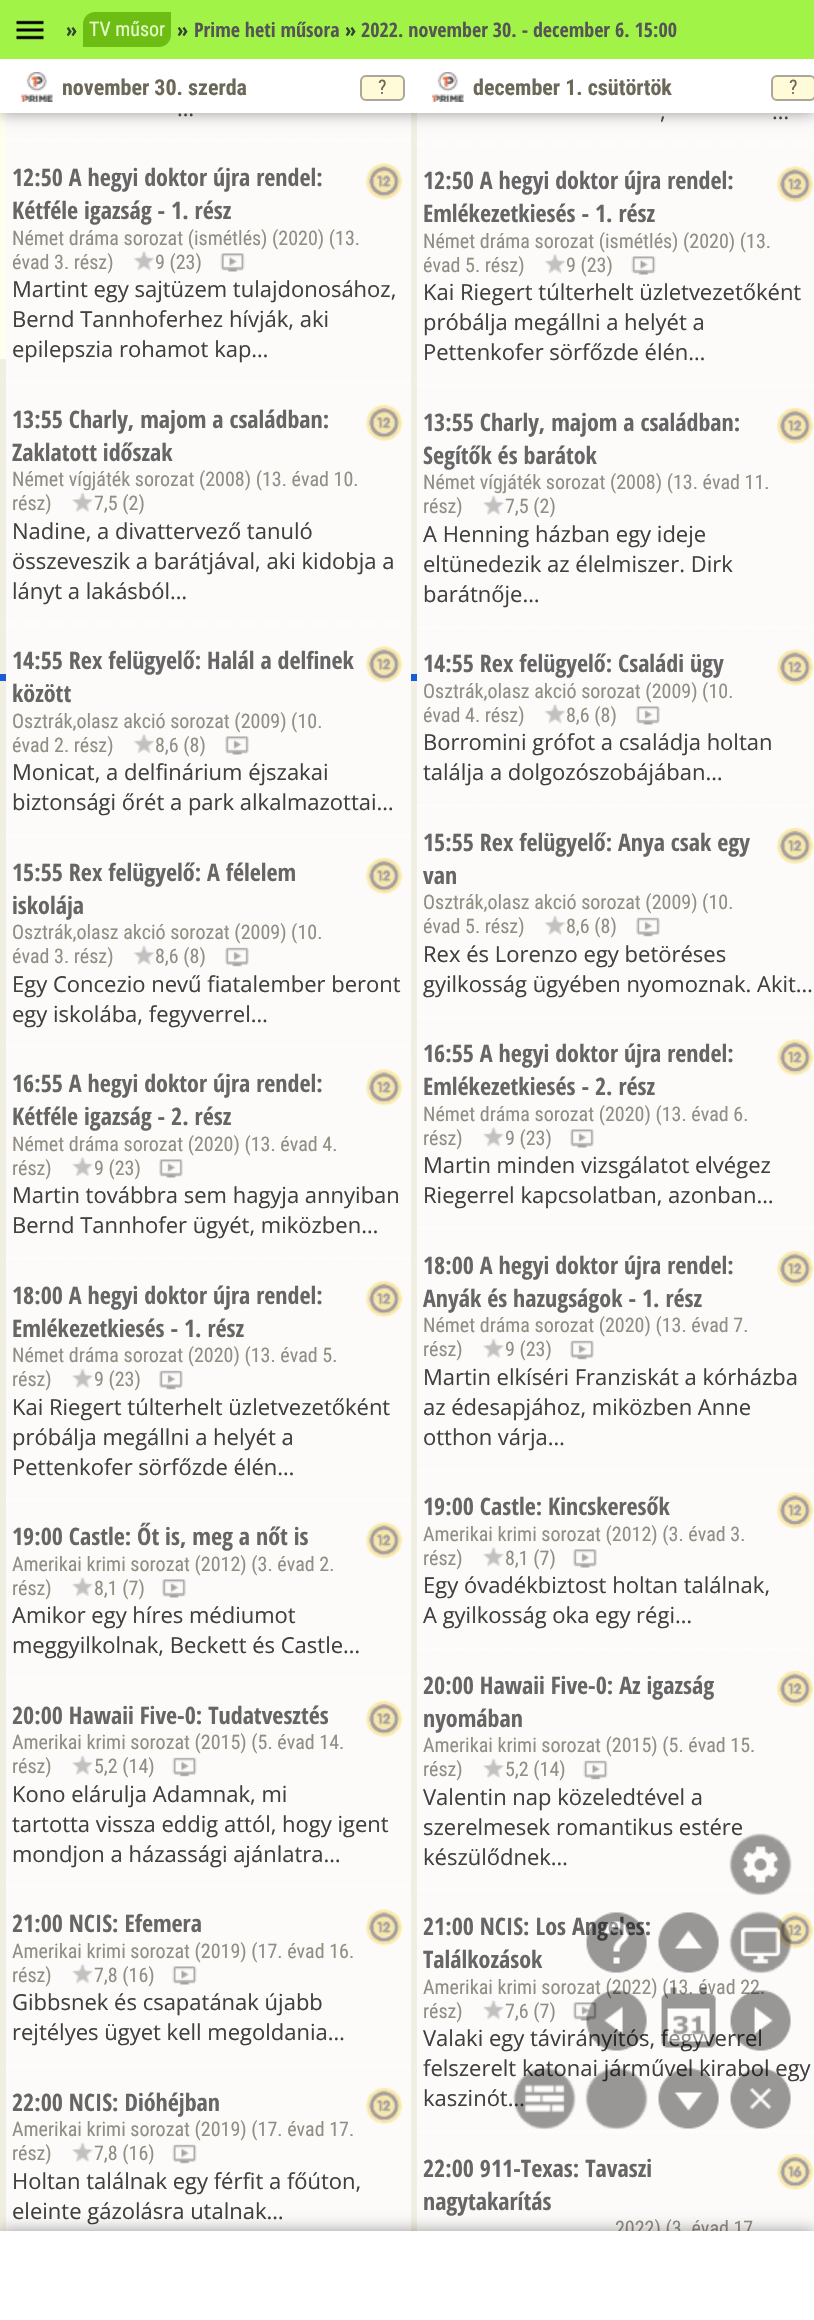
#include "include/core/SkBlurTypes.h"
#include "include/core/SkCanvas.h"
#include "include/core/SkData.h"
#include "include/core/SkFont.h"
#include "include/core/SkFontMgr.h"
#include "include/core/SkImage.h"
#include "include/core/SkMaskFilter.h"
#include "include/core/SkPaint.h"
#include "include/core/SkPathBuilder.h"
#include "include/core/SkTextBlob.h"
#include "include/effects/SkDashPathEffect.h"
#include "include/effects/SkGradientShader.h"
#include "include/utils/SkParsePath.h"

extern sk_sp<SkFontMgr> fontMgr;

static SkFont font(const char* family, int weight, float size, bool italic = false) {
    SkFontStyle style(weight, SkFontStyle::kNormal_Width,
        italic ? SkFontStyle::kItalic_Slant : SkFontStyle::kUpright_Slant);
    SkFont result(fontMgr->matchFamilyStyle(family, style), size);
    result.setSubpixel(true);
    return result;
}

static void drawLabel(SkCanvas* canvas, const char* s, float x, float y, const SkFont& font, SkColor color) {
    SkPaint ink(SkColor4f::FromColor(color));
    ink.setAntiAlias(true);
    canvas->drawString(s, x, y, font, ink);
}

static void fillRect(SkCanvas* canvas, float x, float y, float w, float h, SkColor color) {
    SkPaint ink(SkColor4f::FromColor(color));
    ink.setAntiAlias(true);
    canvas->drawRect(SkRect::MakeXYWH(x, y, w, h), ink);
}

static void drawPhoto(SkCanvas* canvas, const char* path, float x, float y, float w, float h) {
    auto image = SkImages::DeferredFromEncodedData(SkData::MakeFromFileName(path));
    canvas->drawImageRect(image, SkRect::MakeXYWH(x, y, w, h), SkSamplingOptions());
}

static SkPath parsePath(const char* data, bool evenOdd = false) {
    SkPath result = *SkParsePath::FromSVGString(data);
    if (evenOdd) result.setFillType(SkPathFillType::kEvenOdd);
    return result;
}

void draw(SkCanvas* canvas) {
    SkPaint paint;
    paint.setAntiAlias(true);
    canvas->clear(0xFFF1EFE2);
    fillRect(canvas, 0, 113, 6, 246, 0xFFFFFFF0);
    fillRect(canvas, 0, 674, 417, 7, 0xFF1A5BDA);
    fillRect(canvas, 6, 113, 405, 2118, 0xFFFDFBFA);
    fillRect(canvas, 417, 113, 397, 2118, 0xFFFDFBFA);
    paint.setColor(0x66000000);
    paint.setMaskFilter(SkMaskFilter::MakeBlur(kNormal_SkBlurStyle, 7.5f));
    canvas->drawRect(SkRect::MakeXYWH(0, 0, 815, 113), paint);
    paint.setMaskFilter(nullptr);
    fillRect(canvas, 0, 59, 814, 54, 0xFFFFFFFF);
    fillRect(canvas, 0, 0, 814, 59, 0xFFA1F447);
    drawPhoto(canvas, "assets/img1.png", 16, 20, 28, 20);
    SkFont font1 = font("Open Sans Condensed", 700, 20);
    drawLabel(canvas, "»", 66, 37, font1, 0xFF334433);
    paint.setColor(0xFF6DBD15);
    canvas->drawPath(parsePath("M95 12H171V35C171 41.5 165.5 47 159 47H83V24C83 17.5 88.5 12 95 12Z"), paint);
    SkFont font2 = font("Roboto Condensed", 400, 20);
    drawLabel(canvas, "TV műsor", 89, 36, font2, 0xFFE3FCC8);
    drawLabel(canvas, "»", 177, 37, font1, 0xFF334433);
    drawLabel(canvas, "Prime heti műsora", 194, 37, font1, 0xFF555555);
    drawLabel(canvas, "»", 345, 37, font1, 0xFF334433);
    drawLabel(canvas, "2022. november 30. - december 6. 15:00", 361, 37, font1, 0xFF555555);
    drawPhoto(canvas, "assets/img2.png", 21, 72, 32, 30);
    SkFont font3 = font("Roboto Condensed", 700, 22);
    drawLabel(canvas, "november 30. szerda", 62, 95, font3, 0xFF6C6859);
    paint.setColor(0xFFFFFAD8);
    canvas->drawRoundRect(SkRect::MakeXYWH(361, 76, 43, 24), 5, 5, paint);
    paint.setStroke(true);
    paint.setStrokeWidth(2);
    paint.setColor(0xFFACA899);
    canvas->drawRoundRect(SkRect::MakeXYWH(361, 76, 43, 24), 5, 5, paint);
    drawLabel(canvas, "?", 378, 94, font2, 0xFF6C6859);
    drawPhoto(canvas, "assets/img3.png", 432, 72, 32, 30);
    drawLabel(canvas, "december 1. csütörtök", 473, 95, font3, 0xFF6C6859);
    paint.setStroke(false);
    paint.setColor(0xFFFFFAD8);
    canvas->drawRoundRect(SkRect::MakeXYWH(772, 76, 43, 24), 5, 5, paint);
    paint.setStroke(true);
    paint.setColor(0xFFACA899);
    canvas->drawRoundRect(SkRect::MakeXYWH(772, 76, 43, 24), 5, 5, paint);
    drawLabel(canvas, "?", 789, 94, font2, 0xFF6C6859);
    paint.setStrokeWidth(1.5f);
    paint.setColor(0xFFFFFFFF);
    paint.setPathEffect(SkDashPathEffect::Make({{1.5f, 1.5f}}, 0));
    canvas->drawPath(parsePath("M6 140H411"), paint);
    paint.setPathEffect(nullptr);
    SkFont font4 = font("Open Sans", 400, 22);
    drawLabel(canvas, "…", 177, 116, font4, 0xFF404040);
    paint.setPathEffect(SkDashPathEffect::Make({{1.5f, 1.5f}}, 0));
    canvas->drawPath(parsePath("M6 142H411"), paint);
    paint.setPathEffect(nullptr);
    paint.setPathEffect(SkDashPathEffect::Make({{1.5f, 1.5f}}, 0));
    canvas->drawPath(parsePath("M6 382H411"), paint);
    paint.setPathEffect(nullptr);
    SkFont font5 = font("Open Sans Condensed", 700, 24);
    drawLabel(canvas, "12:50 A hegyi doktor újra rendel:", 12, 186, font5, 0xFF666666);
    drawPhoto(canvas, "assets/img4.png", 366, 163, 36, 37);
    drawLabel(canvas, "Kétféle igazság - 1. rész", 12, 219, font5, 0xFF666666);
    drawLabel(canvas, "Német dráma sorozat (ismétlés) (2020) (13.", 12, 245, font2, 0xFF918E83);
    drawLabel(canvas, "évad 3. rész)", 12, 269, font2, 0xFF918E83);
    drawPhoto(canvas, "assets/img5.png", 133, 251, 22, 20);
    drawLabel(canvas, "9 (23)", 155, 269, font2, 0xFF918E83);
    drawPhoto(canvas, "assets/img6.png", 220, 253, 25, 19);
    drawLabel(canvas, "Martint egy sajtüzem tulajdonosához,", 12, 297, font4, 0xFF404040);
    drawLabel(canvas, "Bernd Tannhoferhez hívják, aki", 12, 327, font4, 0xFF404040);
    drawLabel(canvas, "epilepszia rohamot kap…", 12, 357, font4, 0xFF404040);
    paint.setPathEffect(SkDashPathEffect::Make({{1.5f, 1.5f}}, 0));
    canvas->drawPath(parsePath("M6 383H411"), paint);
    paint.setPathEffect(nullptr);
    paint.setPathEffect(SkDashPathEffect::Make({{1.5f, 1.5f}}, 0));
    canvas->drawPath(parsePath("M6 623H411"), paint);
    paint.setPathEffect(nullptr);
    drawLabel(canvas, "13:55 Charly, majom a családban:", 12, 428, font5, 0xFF666666);
    drawPhoto(canvas, "assets/img7.png", 366, 405, 36, 36);
    drawLabel(canvas, "Zaklatott időszak", 12, 461, font5, 0xFF666666);
    drawLabel(canvas, "Német vígjáték sorozat (2008) (13. évad 10.", 12, 486, font2, 0xFF918E83);
    drawLabel(canvas, "rész)", 12, 510, font2, 0xFF918E83);
    drawPhoto(canvas, "assets/img8.png", 72, 492, 21, 20);
    drawLabel(canvas, "7,5 (2)", 94, 510, font2, 0xFF918E83);
    drawLabel(canvas, "Nadine, a divattervező tanuló", 12, 539, font4, 0xFF404040);
    drawLabel(canvas, "összeveszik a barátjával, aki kidobja a", 12, 569, font4, 0xFF404040);
    drawLabel(canvas, "lányt a lakásból…", 12, 599, font4, 0xFF404040);
    paint.setPathEffect(SkDashPathEffect::Make({{1.5f, 1.5f}}, 0));
    canvas->drawPath(parsePath("M6 625H411"), paint);
    paint.setPathEffect(nullptr);
    paint.setPathEffect(SkDashPathEffect::Make({{1.5f, 1.5f}}, 0));
    canvas->drawPath(parsePath("M6 835H411"), paint);
    paint.setPathEffect(nullptr);
    drawLabel(canvas, "14:55 Rex felügyelő: Halál a delfinek", 12, 669, font5, 0xFF666666);
    drawPhoto(canvas, "assets/img9.png", 366, 646, 36, 37);
    drawLabel(canvas, "között", 12, 702, font5, 0xFF666666);
    drawLabel(canvas, "Osztrák,olasz akció sorozat (2009) (10.", 12, 728, font2, 0xFF918E83);
    drawLabel(canvas, "évad 2. rész)", 12, 752, font2, 0xFF918E83);
    drawPhoto(canvas, "assets/img5.png", 133, 734, 22, 20);
    drawLabel(canvas, "8,6 (8)", 155, 752, font2, 0xFF918E83);
    drawPhoto(canvas, "assets/img10.png", 225, 736, 24, 19);
    drawLabel(canvas, "Monicat, a delfinárium éjszakai", 12, 780, font4, 0xFF404040);
    drawLabel(canvas, "biztonsági őrét a park alkalmazottai…", 12, 810, font4, 0xFF404040);
    paint.setPathEffect(SkDashPathEffect::Make({{1.5f, 1.5f}}, 0));
    canvas->drawPath(parsePath("M6 836H411"), paint);
    paint.setPathEffect(nullptr);
    paint.setPathEffect(SkDashPathEffect::Make({{1.5f, 1.5f}}, 0));
    canvas->drawPath(parsePath("M6 1046H411"), paint);
    paint.setPathEffect(nullptr);
    drawLabel(canvas, "15:55 Rex felügyelő: A félelem", 12, 881, font5, 0xFF666666);
    drawPhoto(canvas, "assets/img7.png", 366, 858, 36, 36);
    drawLabel(canvas, "iskolája", 12, 914, font5, 0xFF666666);
    drawLabel(canvas, "Osztrák,olasz akció sorozat (2009) (10.", 12, 939, font2, 0xFF918E83);
    drawLabel(canvas, "évad 3. rész)", 12, 963, font2, 0xFF918E83);
    drawPhoto(canvas, "assets/img11.png", 133, 945, 22, 20);
    drawLabel(canvas, "8,6 (8)", 155, 963, font2, 0xFF918E83);
    drawPhoto(canvas, "assets/img12.png", 225, 947, 24, 20);
    drawLabel(canvas, "Egy Concezio nevű fiatalember beront", 12, 992, font4, 0xFF404040);
    drawLabel(canvas, "egy iskolába, fegyverrel…", 12, 1022, font4, 0xFF404040);
    paint.setPathEffect(SkDashPathEffect::Make({{1.5f, 1.5f}}, 0));
    canvas->drawPath(parsePath("M6 1048H411"), paint);
    paint.setPathEffect(nullptr);
    paint.setPathEffect(SkDashPathEffect::Make({{1.5f, 1.5f}}, 0));
    canvas->drawPath(parsePath("M6 1258H411"), paint);
    paint.setPathEffect(nullptr);
    drawLabel(canvas, "16:55 A hegyi doktor újra rendel:", 12, 1092, font5, 0xFF666666);
    drawPhoto(canvas, "assets/img9.png", 366, 1069, 36, 37);
    drawLabel(canvas, "Kétféle igazság - 2. rész", 12, 1125, font5, 0xFF666666);
    drawLabel(canvas, "Német dráma sorozat (2020) (13. évad 4.", 12, 1151, font2, 0xFF918E83);
    drawLabel(canvas, "rész)", 12, 1175, font2, 0xFF918E83);
    drawPhoto(canvas, "assets/img13.png", 72, 1157, 21, 20);
    drawLabel(canvas, "9 (23)", 94, 1175, font2, 0xFF918E83);
    drawPhoto(canvas, "assets/img14.png", 159, 1159, 24, 19);
    drawLabel(canvas, "Martin továbbra sem hagyja annyiban", 12, 1203, font4, 0xFF404040);
    drawLabel(canvas, "Bernd Tannhofer ügyét, miközben…", 12, 1233, font4, 0xFF404040);
    paint.setPathEffect(SkDashPathEffect::Make({{1.5f, 1.5f}}, 0));
    canvas->drawPath(parsePath("M6 1259H411"), paint);
    paint.setPathEffect(nullptr);
    paint.setPathEffect(SkDashPathEffect::Make({{1.5f, 1.5f}}, 0));
    canvas->drawPath(parsePath("M6 1499H411"), paint);
    paint.setPathEffect(nullptr);
    drawLabel(canvas, "18:00 A hegyi doktor újra rendel:", 12, 1304, font5, 0xFF666666);
    drawPhoto(canvas, "assets/img7.png", 366, 1281, 36, 36);
    drawLabel(canvas, "Emlékezetkiesés - 1. rész", 12, 1337, font5, 0xFF666666);
    drawLabel(canvas, "Német dráma sorozat (2020) (13. évad 5.", 12, 1362, font2, 0xFF918E83);
    drawLabel(canvas, "rész)", 12, 1386, font2, 0xFF918E83);
    drawPhoto(canvas, "assets/img8.png", 72, 1368, 21, 20);
    drawLabel(canvas, "9 (23)", 94, 1386, font2, 0xFF918E83);
    drawPhoto(canvas, "assets/img15.png", 159, 1370, 24, 20);
    drawLabel(canvas, "Kai Riegert túlterhelt üzletvezetőként", 12, 1415, font4, 0xFF404040);
    drawLabel(canvas, "próbálja megállni a helyét a", 12, 1445, font4, 0xFF404040);
    drawLabel(canvas, "Pettenkofer sörfőzde élén…", 12, 1475, font4, 0xFF404040);
    paint.setPathEffect(SkDashPathEffect::Make({{1.5f, 1.5f}}, 0));
    canvas->drawPath(parsePath("M6 1501H411"), paint);
    paint.setPathEffect(nullptr);
    paint.setPathEffect(SkDashPathEffect::Make({{1.5f, 1.5f}}, 0));
    canvas->drawPath(parsePath("M6 1678H411"), paint);
    paint.setPathEffect(nullptr);
    drawLabel(canvas, "19:00 Castle: Őt is, meg a nőt is", 12, 1545, font5, 0xFF666666);
    drawPhoto(canvas, "assets/img9.png", 366, 1522, 36, 37);
    drawLabel(canvas, "Amerikai krimi sorozat (2012) (3. évad 2.", 12, 1571, font2, 0xFF918E83);
    drawLabel(canvas, "rész)", 12, 1595, font2, 0xFF918E83);
    drawPhoto(canvas, "assets/img13.png", 72, 1577, 21, 20);
    drawLabel(canvas, "8,1 (7)", 94, 1595, font2, 0xFF918E83);
    drawPhoto(canvas, "assets/img14.png", 162, 1579, 24, 19);
    drawLabel(canvas, "Amikor egy híres médiumot", 12, 1623, font4, 0xFF404040);
    drawLabel(canvas, "meggyilkolnak, Beckett és Castle…", 12, 1653, font4, 0xFF404040);
    paint.setPathEffect(SkDashPathEffect::Make({{1.5f, 1.5f}}, 0));
    canvas->drawPath(parsePath("M6 1679H411"), paint);
    paint.setPathEffect(nullptr);
    paint.setPathEffect(SkDashPathEffect::Make({{1.5f, 1.5f}}, 0));
    canvas->drawPath(parsePath("M6 1886H411"), paint);
    paint.setPathEffect(nullptr);
    drawLabel(canvas, "20:00 Hawaii Five-0: Tudatvesztés", 12, 1724, font5, 0xFF666666);
    drawPhoto(canvas, "assets/img7.png", 366, 1701, 36, 36);
    drawLabel(canvas, "Amerikai krimi sorozat (2015) (5. évad 14.", 12, 1749, font2, 0xFF918E83);
    drawLabel(canvas, "rész)", 12, 1773, font2, 0xFF918E83);
    drawPhoto(canvas, "assets/img8.png", 72, 1755, 21, 20);
    drawLabel(canvas, "5,2 (14)", 94, 1773, font2, 0xFF918E83);
    drawPhoto(canvas, "assets/img16.png", 172, 1757, 25, 20);
    drawLabel(canvas, "Kono elárulja Adamnak, mi", 12, 1802, font4, 0xFF404040);
    drawLabel(canvas, "tartotta vissza eddig attól, hogy igent", 12, 1832, font4, 0xFF404040);
    drawLabel(canvas, "mondjon a házassági ajánlatra…", 12, 1862, font4, 0xFF404040);
    paint.setPathEffect(SkDashPathEffect::Make({{1.5f, 1.5f}}, 0));
    canvas->drawPath(parsePath("M6 1888H411"), paint);
    paint.setPathEffect(nullptr);
    paint.setPathEffect(SkDashPathEffect::Make({{1.5f, 1.5f}}, 0));
    canvas->drawPath(parsePath("M6 2065H411"), paint);
    paint.setPathEffect(nullptr);
    drawLabel(canvas, "21:00 NCIS: Efemera", 12, 1932, font5, 0xFF666666);
    drawPhoto(canvas, "assets/img9.png", 366, 1909, 36, 37);
    drawLabel(canvas, "Amerikai krimi sorozat (2019) (17. évad 16.", 12, 1958, font2, 0xFF918E83);
    drawLabel(canvas, "rész)", 12, 1982, font2, 0xFF918E83);
    drawPhoto(canvas, "assets/img13.png", 72, 1964, 21, 20);
    drawLabel(canvas, "7,8 (16)", 94, 1982, font2, 0xFF918E83);
    drawPhoto(canvas, "assets/img17.png", 172, 1966, 25, 19);
    drawLabel(canvas, "Gibbsnek és csapatának újabb", 12, 2010, font4, 0xFF404040);
    drawLabel(canvas, "rejtélyes ügyet kell megoldania…", 12, 2040, font4, 0xFF404040);
    paint.setPathEffect(SkDashPathEffect::Make({{1.5f, 1.5f}}, 0));
    canvas->drawPath(parsePath("M6 2066H411"), paint);
    paint.setPathEffect(nullptr);
    drawLabel(canvas, "22:00 NCIS: Dióhéjban", 12, 2111, font5, 0xFF666666);
    drawPhoto(canvas, "assets/img7.png", 366, 2088, 36, 36);
    drawLabel(canvas, "Amerikai krimi sorozat (2019) (17. évad 17.", 12, 2136, font2, 0xFF918E83);
    drawLabel(canvas, "rész)", 12, 2160, font2, 0xFF918E83);
    drawPhoto(canvas, "assets/img8.png", 72, 2142, 21, 20);
    drawLabel(canvas, "7,8 (16)", 94, 2160, font2, 0xFF918E83);
    drawPhoto(canvas, "assets/img16.png", 172, 2144, 25, 20);
    drawLabel(canvas, "Holtan találnak egy férfit a főúton,", 12, 2189, font4, 0xFF404040);
    drawLabel(canvas, "eleinte gázolásra utalnak…", 12, 2219, font4, 0xFF404040);
    paint.setPathEffect(SkDashPathEffect::Make({{1.5f, 1.5f}}, 0));
    canvas->drawPath(parsePath("M417 143H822"), paint);
    paint.setPathEffect(nullptr);
    drawLabel(canvas, ",", 660, 119, font4, 0xFF404040);
    drawLabel(canvas, "…", 772, 119, font4, 0xFF404040);
    paint.setPathEffect(SkDashPathEffect::Make({{1.5f, 1.5f}}, 0));
    canvas->drawPath(parsePath("M417 145H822"), paint);
    paint.setPathEffect(nullptr);
    paint.setPathEffect(SkDashPathEffect::Make({{1.5f, 1.5f}}, 0));
    canvas->drawPath(parsePath("M417 385H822"), paint);
    paint.setPathEffect(nullptr);
    drawLabel(canvas, "12:50 A hegyi doktor újra rendel:", 423, 189, font5, 0xFF666666);
    drawPhoto(canvas, "assets/img4.png", 777, 166, 36, 37);
    drawLabel(canvas, "Emlékezetkiesés - 1. rész", 423, 222, font5, 0xFF666666);
    drawLabel(canvas, "Német dráma sorozat (ismétlés) (2020) (13.", 423, 248, font2, 0xFF918E83);
    drawLabel(canvas, "évad 5. rész)", 423, 272, font2, 0xFF918E83);
    drawPhoto(canvas, "assets/img5.png", 544, 254, 22, 20);
    drawLabel(canvas, "9 (23)", 566, 272, font2, 0xFF918E83);
    drawPhoto(canvas, "assets/img6.png", 631, 256, 25, 19);
    drawLabel(canvas, "Kai Riegert túlterhelt üzletvezetőként", 423, 300, font4, 0xFF404040);
    drawLabel(canvas, "próbálja megállni a helyét a", 423, 330, font4, 0xFF404040);
    drawLabel(canvas, "Pettenkofer sörfőzde élén…", 423, 360, font4, 0xFF404040);
    paint.setPathEffect(SkDashPathEffect::Make({{1.5f, 1.5f}}, 0));
    canvas->drawPath(parsePath("M417 386H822"), paint);
    paint.setPathEffect(nullptr);
    paint.setPathEffect(SkDashPathEffect::Make({{1.5f, 1.5f}}, 0));
    canvas->drawPath(parsePath("M417 626H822"), paint);
    paint.setPathEffect(nullptr);
    drawLabel(canvas, "13:55 Charly, majom a családban:", 423, 431, font5, 0xFF666666);
    drawPhoto(canvas, "assets/img18.png", 777, 408, 36, 36);
    drawLabel(canvas, "Segítők és barátok", 423, 464, font5, 0xFF666666);
    drawLabel(canvas, "Német vígjáték sorozat (2008) (13. évad 11.", 423, 489, font2, 0xFF918E83);
    drawLabel(canvas, "rész)", 423, 513, font2, 0xFF918E83);
    drawPhoto(canvas, "assets/img8.png", 483, 495, 21, 20);
    drawLabel(canvas, "7,5 (2)", 505, 513, font2, 0xFF918E83);
    drawLabel(canvas, "A Henning házban egy ideje", 423, 542, font4, 0xFF404040);
    drawLabel(canvas, "eltünedezik az élelmiszer. Dirk", 423, 572, font4, 0xFF404040);
    drawLabel(canvas, "barátnője…", 423, 602, font4, 0xFF404040);
    paint.setPathEffect(SkDashPathEffect::Make({{1.5f, 1.5f}}, 0));
    canvas->drawPath(parsePath("M417 628H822"), paint);
    paint.setPathEffect(nullptr);
    paint.setPathEffect(SkDashPathEffect::Make({{1.5f, 1.5f}}, 0));
    canvas->drawPath(parsePath("M417 805H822"), paint);
    paint.setPathEffect(nullptr);
    drawLabel(canvas, "14:55 Rex felügyelő: Családi ügy", 423, 672, font5, 0xFF666666);
    drawPhoto(canvas, "assets/img4.png", 777, 649, 36, 37);
    drawLabel(canvas, "Osztrák,olasz akció sorozat (2009) (10.", 423, 698, font2, 0xFF918E83);
    drawLabel(canvas, "évad 4. rész)", 423, 722, font2, 0xFF918E83);
    drawPhoto(canvas, "assets/img5.png", 544, 704, 22, 20);
    drawLabel(canvas, "8,6 (8)", 566, 722, font2, 0xFF918E83);
    drawPhoto(canvas, "assets/img10.png", 636, 706, 24, 19);
    drawLabel(canvas, "Borromini grófot a családja holtan", 423, 750, font4, 0xFF404040);
    drawLabel(canvas, "találja a dolgozószobájában…", 423, 780, font4, 0xFF404040);
    paint.setPathEffect(SkDashPathEffect::Make({{1.5f, 1.5f}}, 0));
    canvas->drawPath(parsePath("M417 806H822"), paint);
    paint.setPathEffect(nullptr);
    paint.setPathEffect(SkDashPathEffect::Make({{1.5f, 1.5f}}, 0));
    canvas->drawPath(parsePath("M417 1016H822"), paint);
    paint.setPathEffect(nullptr);
    drawLabel(canvas, "15:55 Rex felügyelő: Anya csak egy", 423, 851, font5, 0xFF666666);
    drawPhoto(canvas, "assets/img18.png", 777, 828, 36, 36);
    drawLabel(canvas, "van", 423, 884, font5, 0xFF666666);
    drawLabel(canvas, "Osztrák,olasz akció sorozat (2009) (10.", 423, 909, font2, 0xFF918E83);
    drawLabel(canvas, "évad 5. rész)", 423, 933, font2, 0xFF918E83);
    drawPhoto(canvas, "assets/img11.png", 544, 915, 22, 20);
    drawLabel(canvas, "8,6 (8)", 566, 933, font2, 0xFF918E83);
    drawPhoto(canvas, "assets/img12.png", 636, 917, 24, 20);
    drawLabel(canvas, "Rex és Lorenzo egy betöréses", 423, 962, font4, 0xFF404040);
    drawLabel(canvas, "gyilkosság ügyében nyomoznak. Akit…", 423, 992, font4, 0xFF404040);
    paint.setPathEffect(SkDashPathEffect::Make({{1.5f, 1.5f}}, 0));
    canvas->drawPath(parsePath("M417 1018H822"), paint);
    paint.setPathEffect(nullptr);
    paint.setPathEffect(SkDashPathEffect::Make({{1.5f, 1.5f}}, 0));
    canvas->drawPath(parsePath("M417 1228H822"), paint);
    paint.setPathEffect(nullptr);
    drawLabel(canvas, "16:55 A hegyi doktor újra rendel:", 423, 1062, font5, 0xFF666666);
    drawPhoto(canvas, "assets/img4.png", 777, 1039, 36, 37);
    drawLabel(canvas, "Emlékezetkiesés - 2. rész", 423, 1095, font5, 0xFF666666);
    drawLabel(canvas, "Német dráma sorozat (2020) (13. évad 6.", 423, 1121, font2, 0xFF918E83);
    drawLabel(canvas, "rész)", 423, 1145, font2, 0xFF918E83);
    drawPhoto(canvas, "assets/img13.png", 483, 1127, 21, 20);
    drawLabel(canvas, "9 (23)", 505, 1145, font2, 0xFF918E83);
    drawPhoto(canvas, "assets/img10.png", 570, 1129, 24, 19);
    drawLabel(canvas, "Martin minden vizsgálatot elvégez", 423, 1173, font4, 0xFF404040);
    drawLabel(canvas, "Riegerrel kapcsolatban, azonban…", 423, 1203, font4, 0xFF404040);
    paint.setPathEffect(SkDashPathEffect::Make({{1.5f, 1.5f}}, 0));
    canvas->drawPath(parsePath("M417 1229H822"), paint);
    paint.setPathEffect(nullptr);
    paint.setPathEffect(SkDashPathEffect::Make({{1.5f, 1.5f}}, 0));
    canvas->drawPath(parsePath("M417 1469H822"), paint);
    paint.setPathEffect(nullptr);
    drawLabel(canvas, "18:00 A hegyi doktor újra rendel:", 423, 1274, font5, 0xFF666666);
    drawPhoto(canvas, "assets/img18.png", 777, 1251, 36, 36);
    drawLabel(canvas, "Anyák és hazugságok - 1. rész", 423, 1307, font5, 0xFF666666);
    drawLabel(canvas, "Német dráma sorozat (2020) (13. évad 7.", 423, 1332, font2, 0xFF918E83);
    drawLabel(canvas, "rész)", 423, 1356, font2, 0xFF918E83);
    drawPhoto(canvas, "assets/img8.png", 483, 1338, 21, 20);
    drawLabel(canvas, "9 (23)", 505, 1356, font2, 0xFF918E83);
    drawPhoto(canvas, "assets/img12.png", 570, 1340, 24, 20);
    drawLabel(canvas, "Martin elkíséri Franziskát a kórházba", 423, 1385, font4, 0xFF404040);
    drawLabel(canvas, "az édesapjához, miközben Anne", 423, 1415, font4, 0xFF404040);
    drawLabel(canvas, "otthon várja…", 423, 1445, font4, 0xFF404040);
    paint.setPathEffect(SkDashPathEffect::Make({{1.5f, 1.5f}}, 0));
    canvas->drawPath(parsePath("M417 1471H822"), paint);
    paint.setPathEffect(nullptr);
    paint.setPathEffect(SkDashPathEffect::Make({{1.5f, 1.5f}}, 0));
    canvas->drawPath(parsePath("M417 1648H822"), paint);
    paint.setPathEffect(nullptr);
    drawLabel(canvas, "19:00 Castle: Kincskeresők", 423, 1515, font5, 0xFF666666);
    drawPhoto(canvas, "assets/img4.png", 777, 1492, 36, 37);
    drawLabel(canvas, "Amerikai krimi sorozat (2012) (3. évad 3.", 423, 1541, font2, 0xFF918E83);
    drawLabel(canvas, "rész)", 423, 1565, font2, 0xFF918E83);
    drawPhoto(canvas, "assets/img13.png", 483, 1547, 21, 20);
    drawLabel(canvas, "8,1 (7)", 505, 1565, font2, 0xFF918E83);
    drawPhoto(canvas, "assets/img10.png", 573, 1549, 24, 19);
    drawLabel(canvas, "Egy óvadékbiztost holtan találnak,", 423, 1593, font4, 0xFF404040);
    drawLabel(canvas, "A gyilkosság oka egy régi…", 423, 1623, font4, 0xFF404040);
    paint.setPathEffect(SkDashPathEffect::Make({{1.5f, 1.5f}}, 0));
    canvas->drawPath(parsePath("M417 1649H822"), paint);
    paint.setPathEffect(nullptr);
    paint.setPathEffect(SkDashPathEffect::Make({{1.5f, 1.5f}}, 0));
    canvas->drawPath(parsePath("M417 1889H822"), paint);
    paint.setPathEffect(nullptr);
    drawLabel(canvas, "20:00 Hawaii Five-0: Az igazság", 423, 1694, font5, 0xFF666666);
    drawPhoto(canvas, "assets/img18.png", 777, 1671, 36, 36);
    drawLabel(canvas, "nyomában", 423, 1727, font5, 0xFF666666);
    drawLabel(canvas, "Amerikai krimi sorozat (2015) (5. évad 15.", 423, 1752, font2, 0xFF918E83);
    drawLabel(canvas, "rész)", 423, 1776, font2, 0xFF918E83);
    drawPhoto(canvas, "assets/img8.png", 483, 1758, 21, 20);
    drawLabel(canvas, "5,2 (14)", 505, 1776, font2, 0xFF918E83);
    drawPhoto(canvas, "assets/img19.png", 583, 1760, 25, 20);
    drawLabel(canvas, "Valentin nap közeledtével a", 423, 1805, font4, 0xFF404040);
    drawLabel(canvas, "szerelmesek romantikus estére", 423, 1835, font4, 0xFF404040);
    drawLabel(canvas, "készülődnek…", 423, 1865, font4, 0xFF404040);
    paint.setPathEffect(SkDashPathEffect::Make({{1.5f, 1.5f}}, 0));
    canvas->drawPath(parsePath("M417 1891H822"), paint);
    paint.setPathEffect(nullptr);
    paint.setPathEffect(SkDashPathEffect::Make({{1.5f, 1.5f}}, 0));
    canvas->drawPath(parsePath("M417 2131H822"), paint);
    paint.setPathEffect(nullptr);
    drawLabel(canvas, "21:00 NCIS: Los Angeles:", 423, 1935, font5, 0xFF666666);
    drawPhoto(canvas, "assets/img4.png", 777, 1912, 36, 37);
    drawLabel(canvas, "Találkozások", 423, 1968, font5, 0xFF666666);
    drawLabel(canvas, "Amerikai krimi sorozat (2022) (13. évad 22.", 423, 1994, font2, 0xFF918E83);
    drawLabel(canvas, "rész)", 423, 2018, font2, 0xFF918E83);
    drawPhoto(canvas, "assets/img13.png", 483, 2000, 21, 20);
    drawLabel(canvas, "7,6 (7)", 505, 2018, font2, 0xFF918E83);
    drawPhoto(canvas, "assets/img10.png", 573, 2002, 24, 19);
    drawLabel(canvas, "Valaki egy távirányítós, fegyverrel", 423, 2046, font4, 0xFF404040);
    drawLabel(canvas, "felszerelt katonai járművel kirabol egy", 423, 2076, font4, 0xFF404040);
    drawLabel(canvas, "kaszinót…", 423, 2106, font4, 0xFF404040);
    paint.setPathEffect(SkDashPathEffect::Make({{1.5f, 1.5f}}, 0));
    canvas->drawPath(parsePath("M417 2132H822"), paint);
    paint.setPathEffect(nullptr);
    drawLabel(canvas, "22:00 911-Texas: Tavaszi", 423, 2177, font5, 0xFF666666);
    drawPhoto(canvas, "assets/img20.png", 777, 2154, 36, 36);
    drawLabel(canvas, "nagytakarítás", 423, 2210, font5, 0xFF666666);
    drawLabel(canvas, "2022) (3. évad 17", 615, 2235, font2, 0xFF918E83);
    drawPhoto(canvas, "assets/img21.png", 729, 1833, 63, 63);
    drawPhoto(canvas, "assets/img22.png", 586, 1912, 61, 61);
    drawPhoto(canvas, "assets/img23.png", 658, 1912, 61, 61);
    drawPhoto(canvas, "assets/img24.png", 729, 1911, 63, 63);
    drawPhoto(canvas, "assets/img25.png", 586, 1990, 61, 61);
    drawPhoto(canvas, "assets/img26.png", 661, 1987, 55, 61);
    drawPhoto(canvas, "assets/img27.png", 730, 1990, 61, 61);
    drawPhoto(canvas, "assets/img28.png", 513, 2067, 63, 63);
    drawPhoto(canvas, "assets/img29.png", 585, 2067, 63, 63);
    drawPhoto(canvas, "assets/img30.png", 658, 2068, 61, 61);
    drawPhoto(canvas, "assets/img31.png", 730, 2068, 61, 61);
    paint.setStroke(false);
    paint.setColor(0x66000000);
    paint.setMaskFilter(SkMaskFilter::MakeBlur(kNormal_SkBlurStyle, 7.5f));
    canvas->drawRect(SkRect::MakeXYWH(0, 2231, 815, 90), paint);
    paint.setMaskFilter(nullptr);
    fillRect(canvas, 0, 2231, 814, 89, 0xFFFFFFFF);
}
